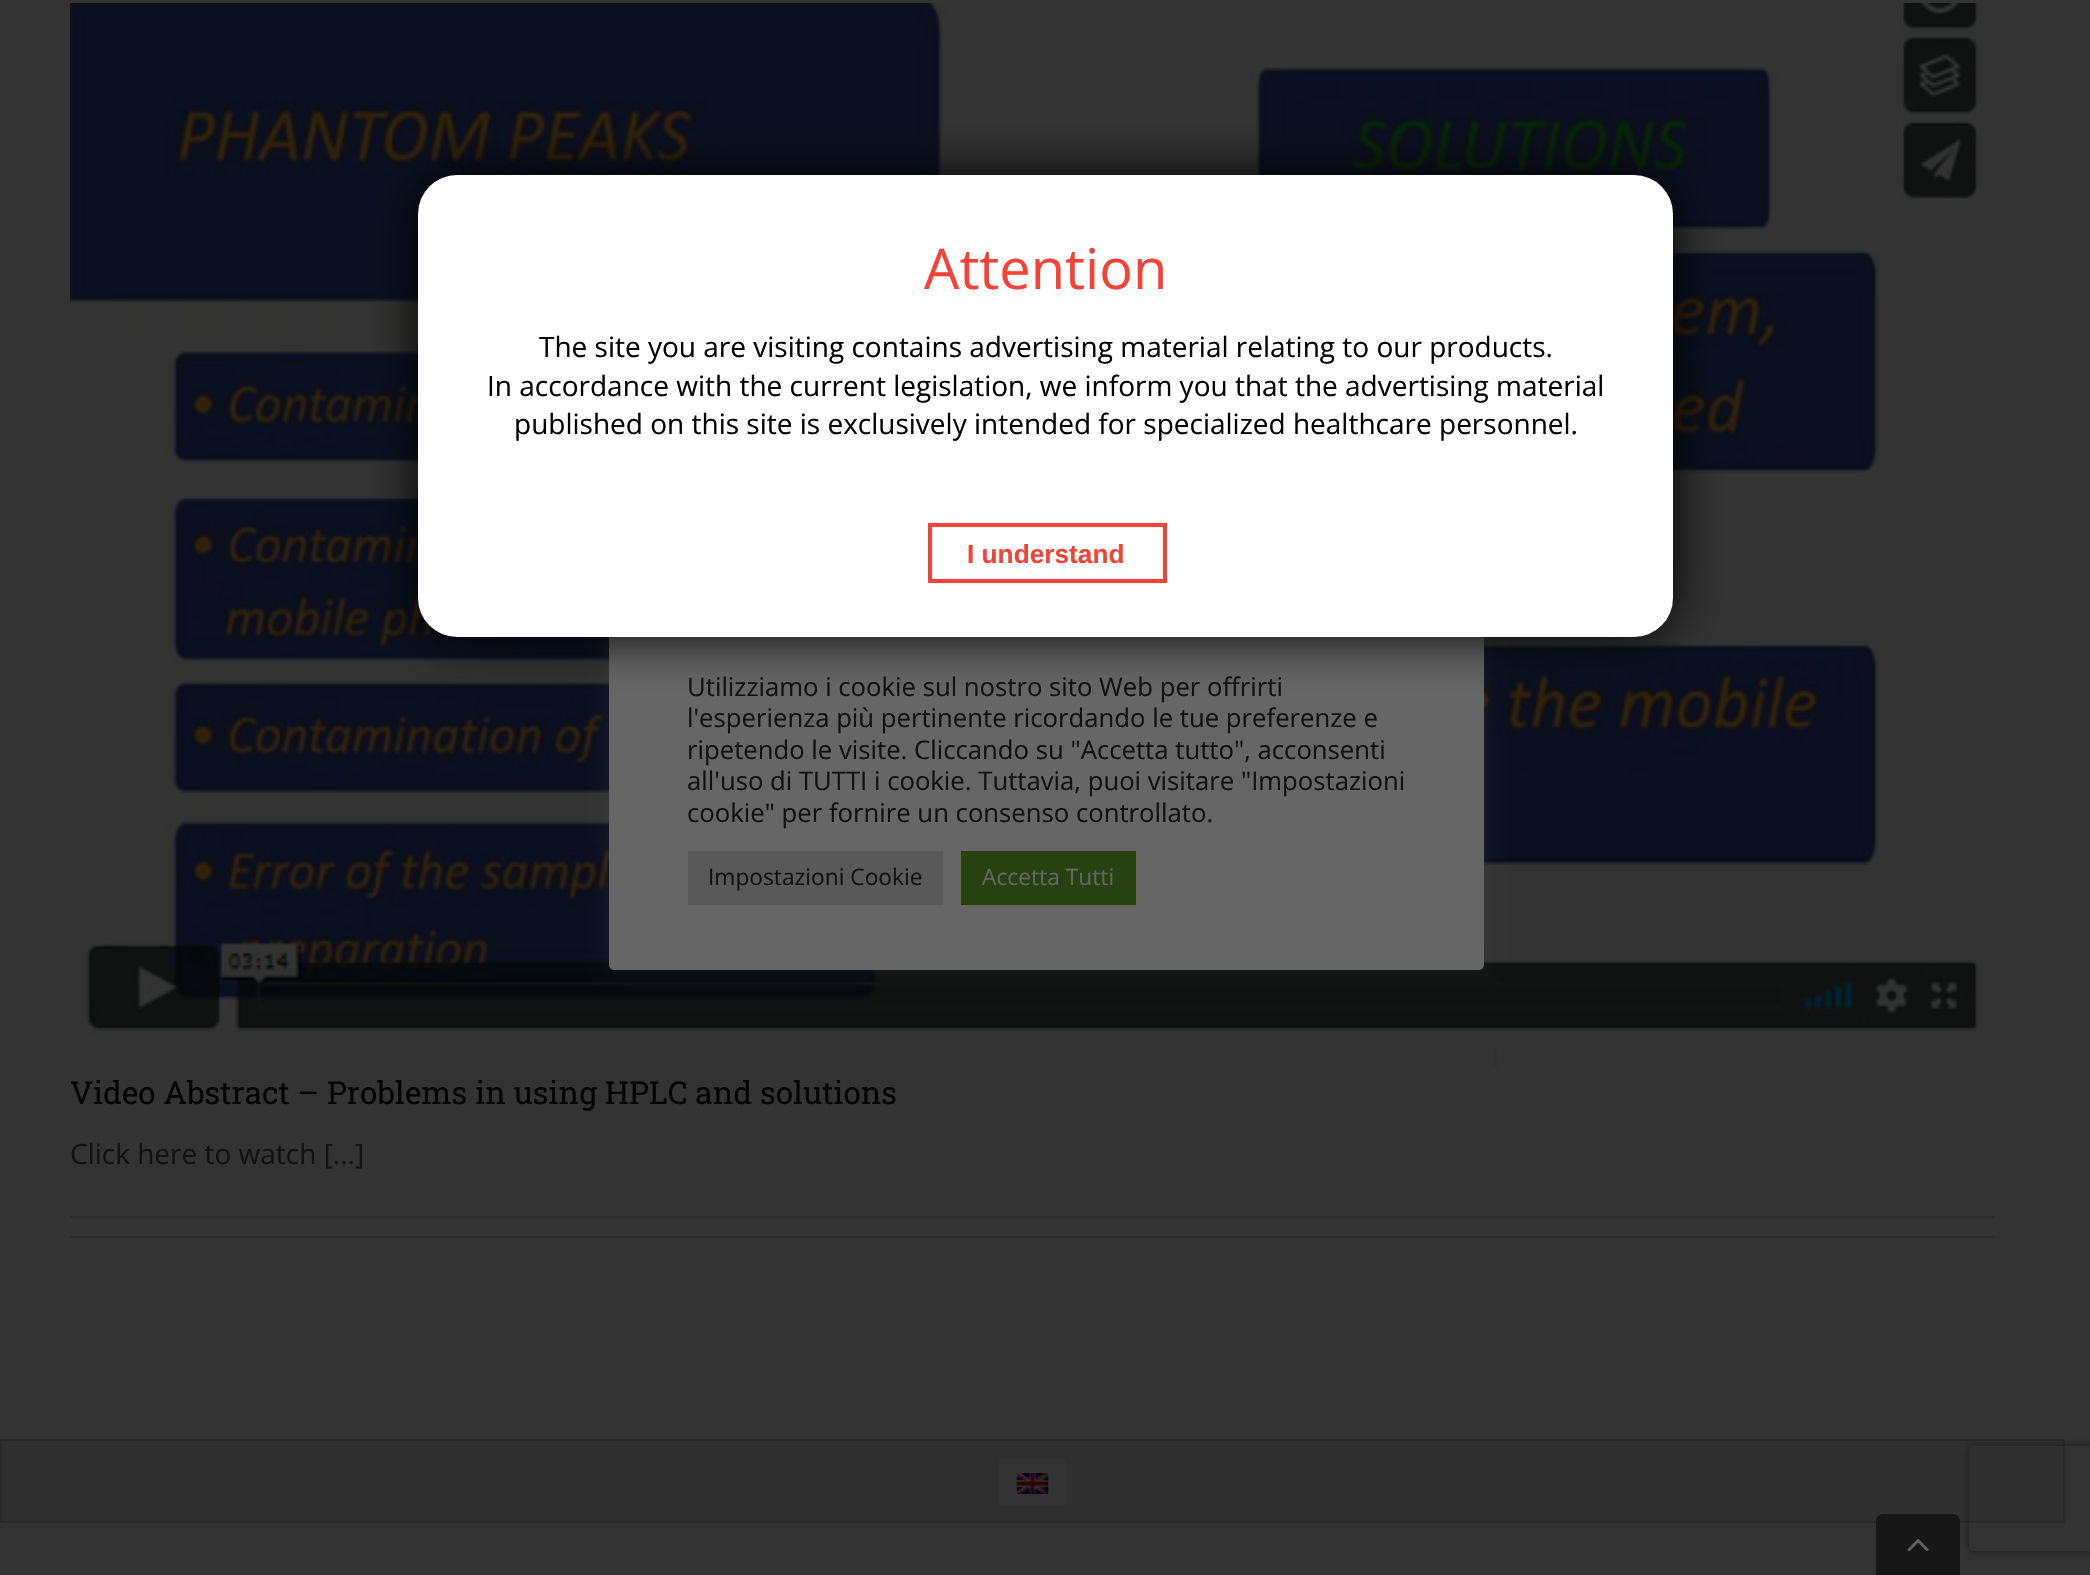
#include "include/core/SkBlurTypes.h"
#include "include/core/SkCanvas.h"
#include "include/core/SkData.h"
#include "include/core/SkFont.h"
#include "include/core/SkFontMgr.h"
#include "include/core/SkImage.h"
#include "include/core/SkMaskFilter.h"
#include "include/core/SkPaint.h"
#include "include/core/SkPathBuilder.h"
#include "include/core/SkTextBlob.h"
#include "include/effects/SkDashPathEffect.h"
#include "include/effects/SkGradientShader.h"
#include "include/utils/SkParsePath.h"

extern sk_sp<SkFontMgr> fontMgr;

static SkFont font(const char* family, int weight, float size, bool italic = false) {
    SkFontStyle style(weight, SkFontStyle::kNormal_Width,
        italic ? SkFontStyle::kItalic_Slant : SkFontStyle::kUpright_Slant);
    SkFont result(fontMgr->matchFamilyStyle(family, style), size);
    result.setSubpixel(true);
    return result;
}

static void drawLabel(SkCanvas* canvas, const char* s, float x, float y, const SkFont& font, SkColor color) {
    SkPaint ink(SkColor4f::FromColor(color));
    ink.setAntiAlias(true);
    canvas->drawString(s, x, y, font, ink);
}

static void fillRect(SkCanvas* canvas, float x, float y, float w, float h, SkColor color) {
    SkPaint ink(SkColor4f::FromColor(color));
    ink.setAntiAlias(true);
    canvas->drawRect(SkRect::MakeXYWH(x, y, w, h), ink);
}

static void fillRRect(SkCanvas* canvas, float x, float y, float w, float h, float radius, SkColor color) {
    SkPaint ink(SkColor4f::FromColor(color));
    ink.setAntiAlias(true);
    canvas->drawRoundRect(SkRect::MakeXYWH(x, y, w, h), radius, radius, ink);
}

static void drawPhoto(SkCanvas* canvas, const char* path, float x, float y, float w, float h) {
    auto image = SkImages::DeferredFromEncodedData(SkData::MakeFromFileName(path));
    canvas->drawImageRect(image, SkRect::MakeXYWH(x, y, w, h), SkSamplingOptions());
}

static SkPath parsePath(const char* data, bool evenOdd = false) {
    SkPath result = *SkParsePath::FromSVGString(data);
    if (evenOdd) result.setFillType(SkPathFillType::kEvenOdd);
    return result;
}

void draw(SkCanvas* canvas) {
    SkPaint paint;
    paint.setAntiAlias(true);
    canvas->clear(0xFF333333);
    drawPhoto(canvas, "assets/img2.png", 70, 3, 1910, 1066);
    paint.setColor(0x4D454444);
    paint.setMaskFilter(SkMaskFilter::MakeBlur(kNormal_SkBlurStyle, 9));
    canvas->drawRoundRect(SkRect::MakeXYWH(609, 613, 875, 355), 5, 5, paint);
    paint.setMaskFilter(nullptr);
    fillRRect(canvas, 609, 614, 875, 356, 5, 0xFF666666);
    paint.setColor(0xFF020202);
    paint.setMaskFilter(SkMaskFilter::MakeBlur(kNormal_SkBlurStyle, 26));
    canvas->drawRoundRect(SkRect::MakeXYWH(418, 175, 1255, 462), 39, 39, paint);
    paint.setMaskFilter(nullptr);
    fillRRect(canvas, 418, 175, 1255, 462, 39, 0xFFFFFFFF);
    SkFont font1 = font("Open Sans", 400, 56);
    drawLabel(canvas, "Attention", 924, 289, font1, 0xFFF44336);
    SkFont font2 = font("Open Sans", 400, 28);
    drawLabel(canvas, "The site you are visiting contains advertising material relating to our products.", 539, 357, font2, 0xFF040405);
    drawLabel(canvas, "In accordance with the current legislation, we inform you that the advertising material", 487, 396, font2, 0xFF040405);
    drawLabel(canvas, "published on this site is exclusively intended for specialized healthcare personnel.", 514, 434, font2, 0xFF040405);
    paint.setStroke(true);
    paint.setStrokeWidth(4);
    paint.setColor(0xFFF44336);
    canvas->drawRect(SkRect::MakeXYWH(930, 525, 235, 56), paint);
    SkFont font3 = font("Liberation Sans", 700, 26.25f);
    drawLabel(canvas, "I understand", 967, 563, font3, 0xFFF44336);
    SkFont font4 = font("Open Sans", 400, 25.7f);
    drawLabel(canvas, "Utilizziamo i cookie sul nostro sito Web per offrirti", 687, 696, font4, 0xFF111111);
    drawLabel(canvas, "l'esperienza più pertinente ricordando le tue preferenze e", 687, 727, font4, 0xFF111111);
    drawLabel(canvas, "ripetendo le visite. Cliccando su \"Accetta tutto\", acconsenti", 687, 759, font4, 0xFF111111);
    drawLabel(canvas, "all'uso di TUTTI i cookie. Tuttavia, puoi visitare \"Impostazioni", 687, 790, font4, 0xFF111111);
    drawLabel(canvas, "cookie\" per fornire un consenso controllato.", 687, 822, font4, 0xFF111111);
    fillRect(canvas, 688, 851, 255, 54, 0xFF59595A);
    SkFont font5 = font("Open Sans", 400, 22.75f);
    drawLabel(canvas, "Impostazioni Cookie", 708, 885, font5, 0xFF111111);
    fillRect(canvas, 961, 851, 175, 54, 0xFF274110);
    drawLabel(canvas, "Accetta Tutti", 982, 885, font5, 0xFF666666);
    paint.setStroke(false);
    paint.setColor(0xFF303030);
    canvas->drawRect(SkRect::MakeXYWH(1, 1440, 2063, 82), paint);
    paint.setStroke(true);
    paint.setStrokeWidth(2);
    paint.setColor(0xFF292929);
    canvas->drawRect(SkRect::MakeXYWH(1, 1440, 2063, 82), paint);
    fillRect(canvas, 999, 1458, 67, 47, 0xFF333333);
    drawPhoto(canvas, "assets/img1.png", 1016, 1473, 33, 21);
    SkFont font6 = font("Roboto Slab", 400, 31.5f);
    drawLabel(canvas, "Video Abstract – Problems in using HPLC and solutions", 70, 1104, font6, 0xFF040405);
    drawLabel(canvas, "Click here to watch [...]", 70, 1164, font2, 0xFF111111);
    fillRect(canvas, 70, 1216, 1925, 2, 0xFF2D2C2C);
    fillRect(canvas, 70, 1236, 1925, 2, 0xFF2D2C2C);
    canvas->save();
    canvas->clipPath(parsePath("M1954 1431H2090V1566H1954ZM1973 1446H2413C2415 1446 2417 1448 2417 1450V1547C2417 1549 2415 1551 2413 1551H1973C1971 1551 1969 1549 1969 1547V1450C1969 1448 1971 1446 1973 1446Z", true), true);
    paint.setStroke(false);
    paint.setColor(0xFF1A1A1A);
    paint.setMaskFilter(SkMaskFilter::MakeBlur(kNormal_SkBlurStyle, 4.5f));
    canvas->drawRoundRect(SkRect::MakeXYWH(1969, 1446, 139, 105), 4, 4, paint);
    paint.setMaskFilter(nullptr);
    canvas->restore();
    paint.setColor(0xE6141414);
    canvas->drawPath(parsePath("M1883 1514H1953C1957 1514 1960 1517 1960 1521V1575H1876V1521C1876 1517 1879 1514 1883 1514Z"), paint);
    drawPhoto(canvas, "assets/img3.png", 1907, 1539, 22, 13);
}
